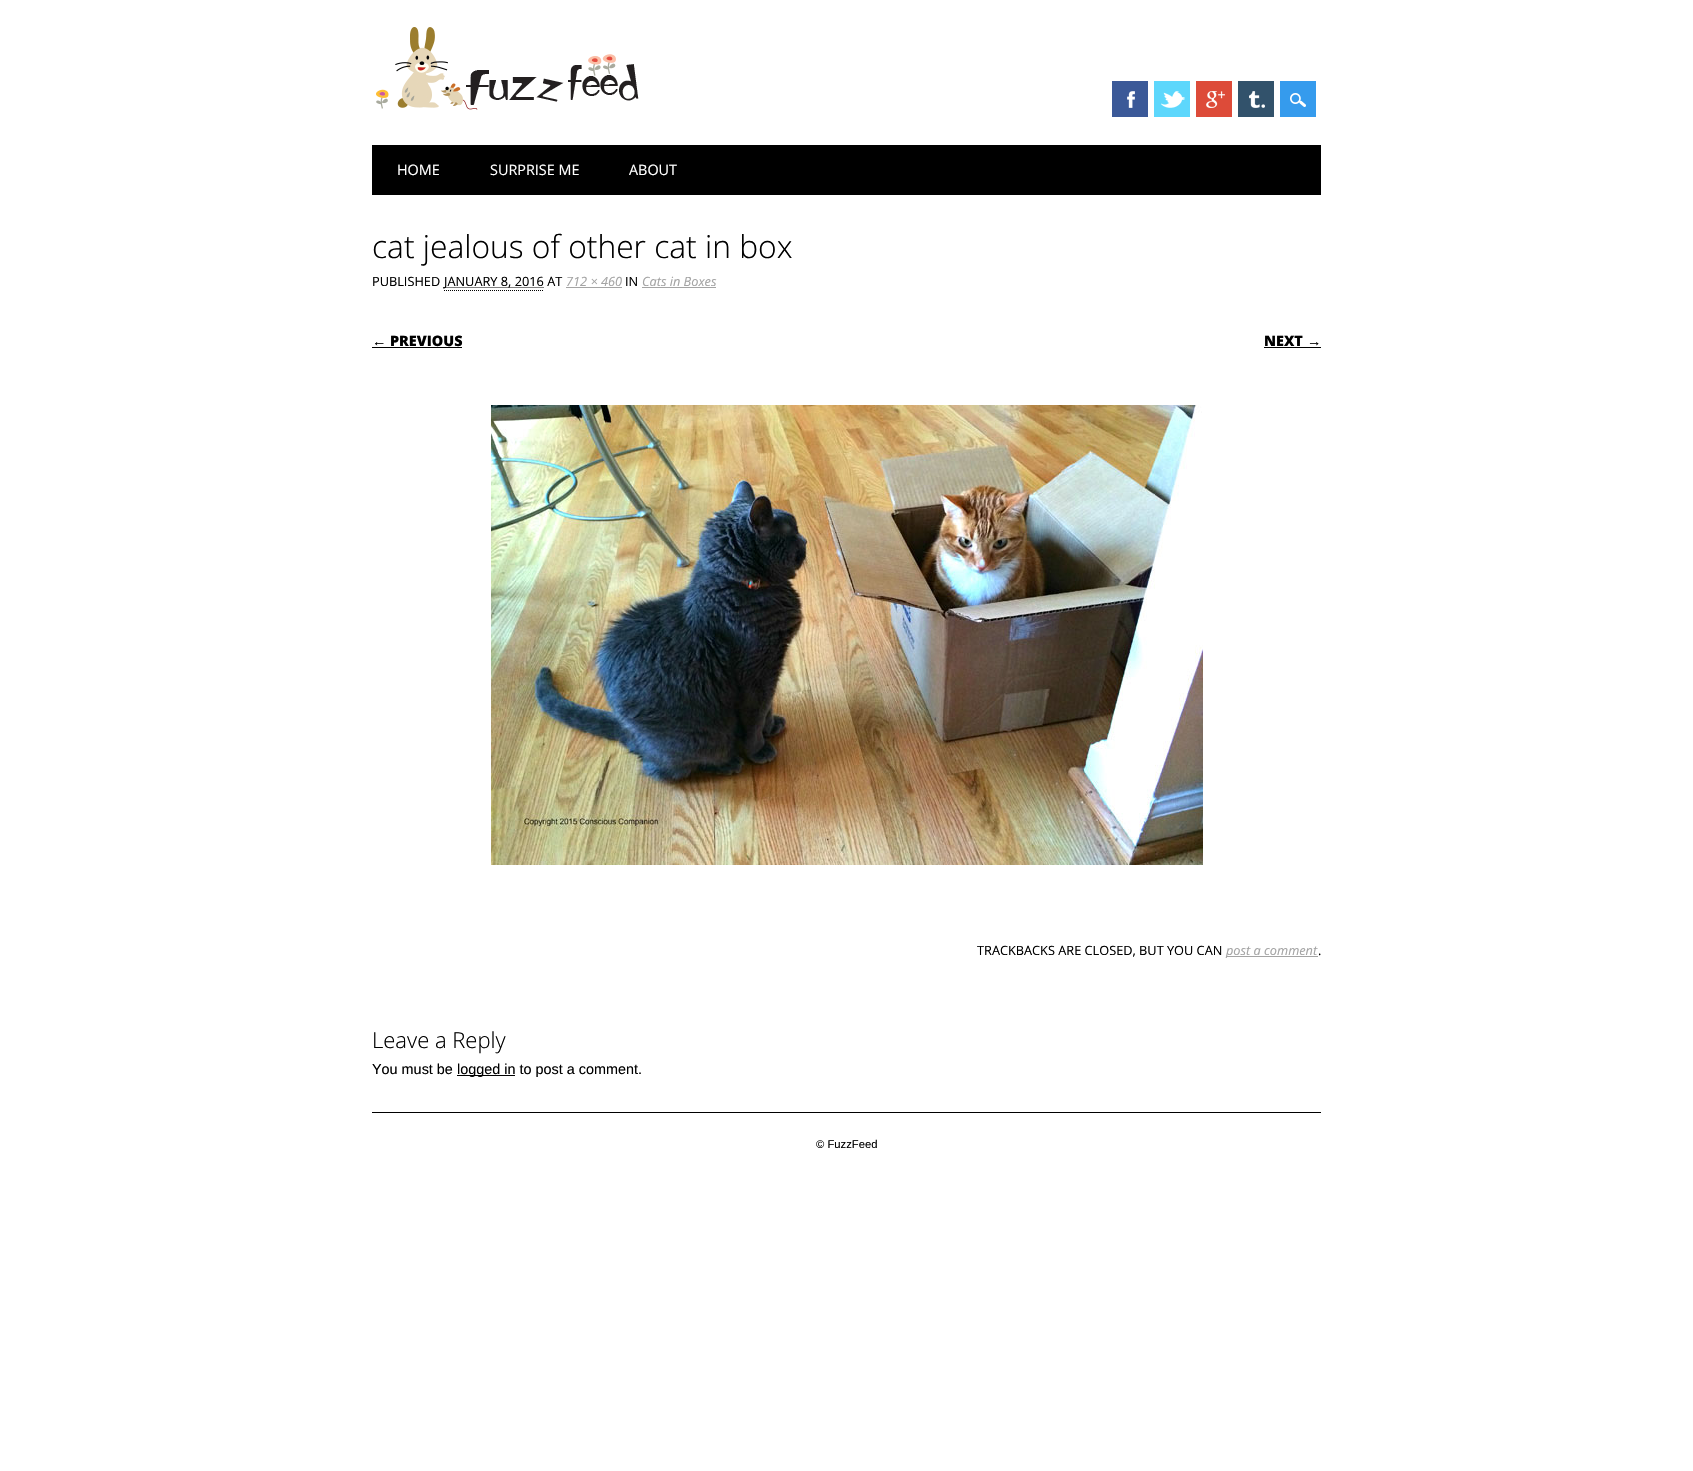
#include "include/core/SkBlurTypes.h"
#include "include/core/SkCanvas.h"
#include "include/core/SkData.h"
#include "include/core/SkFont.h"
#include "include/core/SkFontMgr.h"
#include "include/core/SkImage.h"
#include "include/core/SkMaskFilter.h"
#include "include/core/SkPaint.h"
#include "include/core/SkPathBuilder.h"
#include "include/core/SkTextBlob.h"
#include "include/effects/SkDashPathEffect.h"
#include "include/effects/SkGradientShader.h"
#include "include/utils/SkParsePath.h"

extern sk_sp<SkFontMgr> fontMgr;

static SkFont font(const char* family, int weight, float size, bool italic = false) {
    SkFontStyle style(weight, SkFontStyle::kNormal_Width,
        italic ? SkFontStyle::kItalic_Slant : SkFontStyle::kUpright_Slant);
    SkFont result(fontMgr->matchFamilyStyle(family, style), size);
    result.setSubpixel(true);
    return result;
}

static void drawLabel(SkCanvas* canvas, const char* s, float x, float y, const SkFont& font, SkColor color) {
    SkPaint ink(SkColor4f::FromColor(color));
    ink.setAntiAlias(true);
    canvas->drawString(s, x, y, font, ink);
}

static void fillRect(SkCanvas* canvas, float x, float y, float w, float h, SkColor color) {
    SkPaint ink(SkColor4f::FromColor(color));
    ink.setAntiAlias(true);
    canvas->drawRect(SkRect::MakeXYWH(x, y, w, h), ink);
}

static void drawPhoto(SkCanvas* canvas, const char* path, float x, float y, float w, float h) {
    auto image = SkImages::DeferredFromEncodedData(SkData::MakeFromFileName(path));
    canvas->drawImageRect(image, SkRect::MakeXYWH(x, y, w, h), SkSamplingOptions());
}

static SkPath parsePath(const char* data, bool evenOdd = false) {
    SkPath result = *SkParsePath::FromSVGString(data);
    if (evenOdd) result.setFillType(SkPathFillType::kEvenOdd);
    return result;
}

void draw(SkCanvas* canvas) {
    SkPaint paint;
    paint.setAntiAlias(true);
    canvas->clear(0xFFFFFFFF);
    drawPhoto(canvas, "assets/img1.png", 376, 27, 263, 83);
    fillRect(canvas, 1112, 81, 36, 36, 0xFF3B5998);
    drawPhoto(canvas, "assets/img2.png", 1127, 91, 8, 17);
    fillRect(canvas, 1154, 81, 36, 36, 0xFF5DD7FC);
    drawPhoto(canvas, "assets/img3.png", 1161, 91, 24, 17);
    fillRect(canvas, 1196, 81, 36, 36, 0xFFDD4B39);
    drawPhoto(canvas, "assets/img4.png", 1206, 91, 19, 17);
    fillRect(canvas, 1238, 81, 36, 36, 0xFF32526B);
    drawPhoto(canvas, "assets/img5.png", 1249, 91, 16, 17);
    fillRect(canvas, 1280, 81, 36, 36, 0xFF359BED);
    drawPhoto(canvas, "assets/img6.png", 1290, 93, 16, 14);
    fillRect(canvas, 372, 145, 949, 50, 0xFF000000);
    SkFont font1 = font("Open Sans", 400, 14.4f);
    drawLabel(canvas, "HOME", 397, 175, font1, 0xFFFFFFFF);
    drawLabel(canvas, "SURPRISE ME", 490, 175, font1, 0xFFFFFFFF);
    drawLabel(canvas, "ABOUT", 629, 175, font1, 0xFFFFFFFF);
    SkFont font2 = font("Open Sans", 300, 31.75f);
    drawLabel(canvas, "cat jealous of other cat in box", 372, 258, font2, 0xFF000000);
    SkFont font3 = font("Open Sans", 400, 12.75f);
    drawLabel(canvas, "PUBLISHED", 372, 286, font3, 0xFF000000);
    paint.setStroke(true);
    paint.setStrokeWidth(1);
    paint.setColor(0xFF000000);
    paint.setPathEffect(SkDashPathEffect::Make({{1, 1}}, 0));
    canvas->drawPath(parsePath("M443.5 287.5H544"), paint);
    paint.setPathEffect(nullptr);
    drawLabel(canvas, "JANUARY 8, 2016 AT", 444, 286, font3, 0xFF000000);
    paint.setPathEffect(SkDashPathEffect::Make({{1, 1}}, 0));
    canvas->drawPath(parsePath("M444 290.5H544"), paint);
    paint.setPathEffect(nullptr);
    SkFont font4 = font("Open Sans", 400, 12.75f, true);
    drawLabel(canvas, "712 × 460", 566, 286, font4, 0xFFA4A4A4);
    fillRect(canvas, 566, 287, 56, 1, 0xFFA4A4A4);
    drawLabel(canvas, "IN", 625, 286, font3, 0xFF000000);
    drawLabel(canvas, "Cats in Boxes", 642, 286, font4, 0xFFA4A4A4);
    fillRect(canvas, 642, 287, 74, 1, 0xFFA4A4A4);
    SkFont font5 = font("Liberation Sans", 700, 14.4f);
    drawLabel(canvas, "←", 372, 346, font5, 0xFF000000);
    fillRect(canvas, 372, 347, 90, 1, 0xFF000000);
    SkFont font6 = font("Open Sans", 800, 14.4f);
    drawLabel(canvas, "PREVIOUS", 390, 346, font6, 0xFF000000);
    drawLabel(canvas, "NEXT", 1264, 346, font6, 0xFF000000);
    drawLabel(canvas, "→", 1307, 346, font5, 0xFF000000);
    fillRect(canvas, 1264, 347, 57, 1, 0xFF000000);
    drawPhoto(canvas, "assets/img7.png", 491, 405, 712, 460);
    drawLabel(canvas, "TRACKBACKS ARE CLOSED, BUT YOU CAN", 977, 955, font3, 0xFF000000);
    fillRect(canvas, 1226, 956, 92, 1, 0xFFA4A4A4);
    drawLabel(canvas, "post a comment", 1226, 955, font4, 0xFFA4A4A4);
    drawLabel(canvas, ".", 1318, 955, font3, 0xFF000000);
    SkFont font7 = font("Open Sans", 300, 22);
    drawLabel(canvas, "Leave a Reply", 372, 1048, font7, 0xFF000000);
    SkFont font8 = font("Liberation Sans", 400, 14.4f);
    drawLabel(canvas, "You must be", 372, 1074, font8, 0xFF000000);
    fillRect(canvas, 457, 1075, 58, 1, 0xFF000000);
    drawLabel(canvas, "logged in to post a comment.", 457, 1074, font8, 0xFF000000);
    fillRect(canvas, 372, 1112, 949, 1, 0xFF000000);
    SkFont font9 = font("Liberation Sans", 400, 11.25f);
    drawLabel(canvas, "© FuzzFeed", 816, 1148, font9, 0xFF000000);
}
